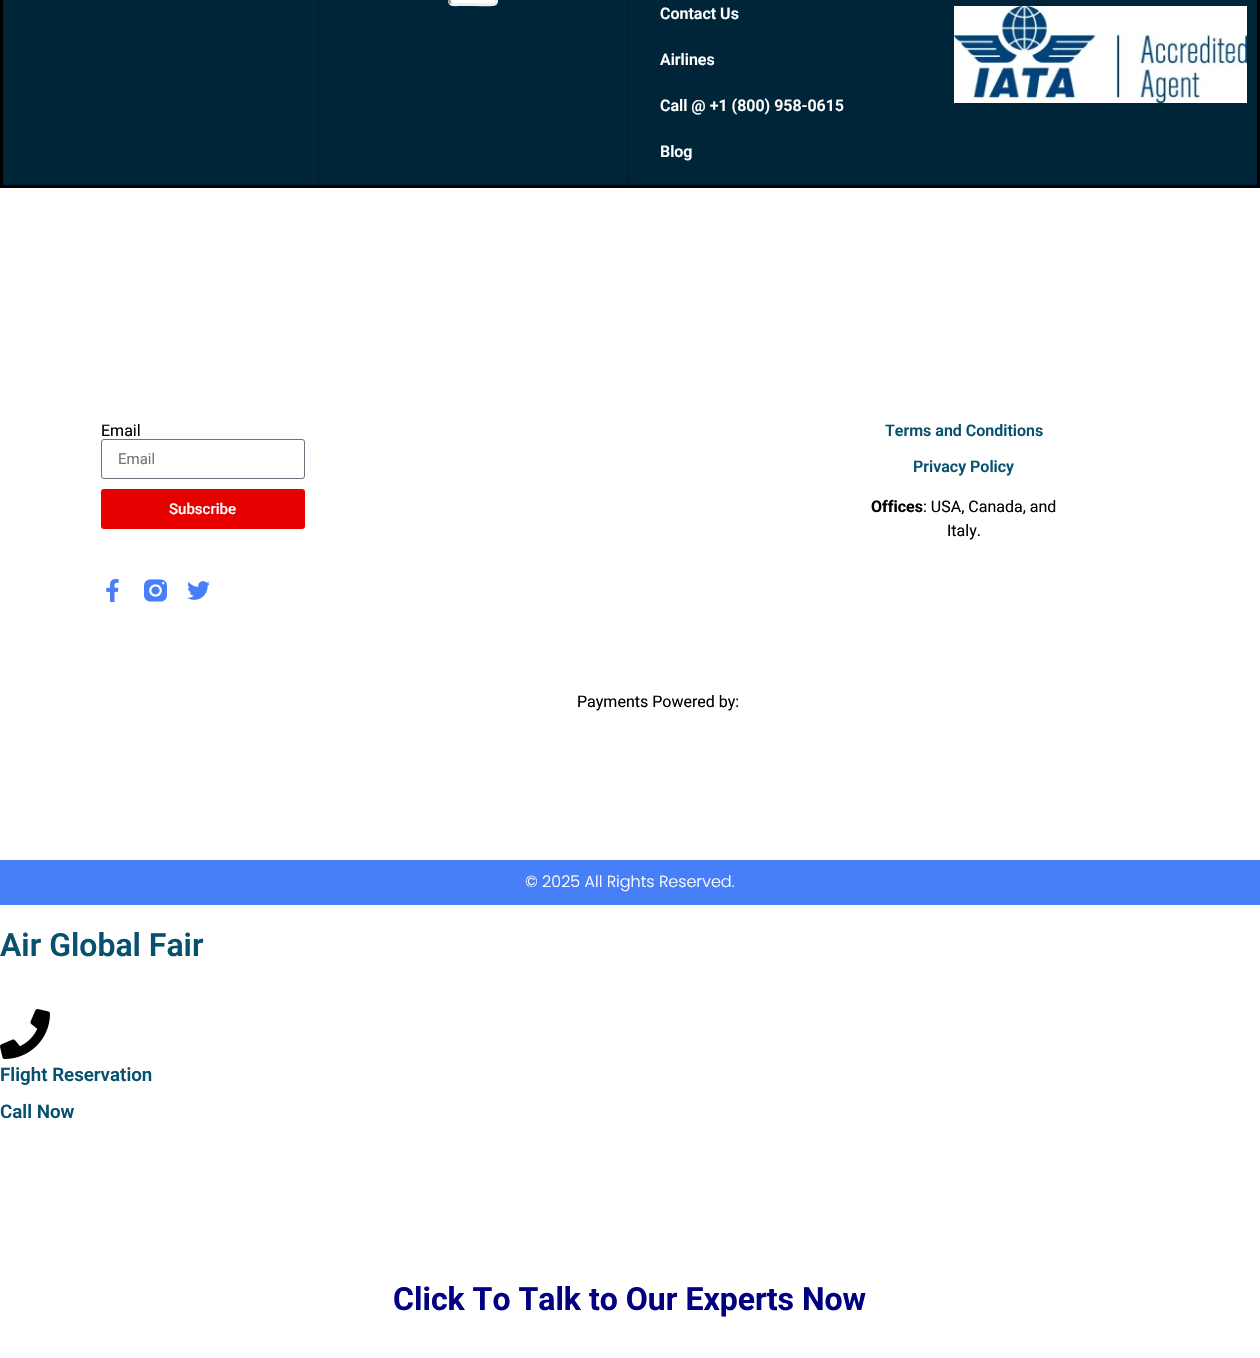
#include "include/core/SkBlurTypes.h"
#include "include/core/SkCanvas.h"
#include "include/core/SkData.h"
#include "include/core/SkFont.h"
#include "include/core/SkFontMgr.h"
#include "include/core/SkImage.h"
#include "include/core/SkMaskFilter.h"
#include "include/core/SkPaint.h"
#include "include/core/SkPathBuilder.h"
#include "include/core/SkTextBlob.h"
#include "include/effects/SkDashPathEffect.h"
#include "include/effects/SkGradientShader.h"
#include "include/utils/SkParsePath.h"

extern sk_sp<SkFontMgr> fontMgr;

static SkFont font(const char* family, int weight, float size, bool italic = false) {
    SkFontStyle style(weight, SkFontStyle::kNormal_Width,
        italic ? SkFontStyle::kItalic_Slant : SkFontStyle::kUpright_Slant);
    SkFont result(fontMgr->matchFamilyStyle(family, style), size);
    result.setSubpixel(true);
    return result;
}

static void drawLabel(SkCanvas* canvas, const char* s, float x, float y, const SkFont& font, SkColor color) {
    SkPaint ink(SkColor4f::FromColor(color));
    ink.setAntiAlias(true);
    canvas->drawString(s, x, y, font, ink);
}

static void fillRect(SkCanvas* canvas, float x, float y, float w, float h, SkColor color) {
    SkPaint ink(SkColor4f::FromColor(color));
    ink.setAntiAlias(true);
    canvas->drawRect(SkRect::MakeXYWH(x, y, w, h), ink);
}

static void fillRRect(SkCanvas* canvas, float x, float y, float w, float h, float radius, SkColor color) {
    SkPaint ink(SkColor4f::FromColor(color));
    ink.setAntiAlias(true);
    canvas->drawRoundRect(SkRect::MakeXYWH(x, y, w, h), radius, radius, ink);
}

static void drawPhoto(SkCanvas* canvas, const char* path, float x, float y, float w, float h) {
    auto image = SkImages::DeferredFromEncodedData(SkData::MakeFromFileName(path));
    canvas->drawImageRect(image, SkRect::MakeXYWH(x, y, w, h), SkSamplingOptions());
}

static SkPath parsePath(const char* data, bool evenOdd = false) {
    SkPath result = *SkParsePath::FromSVGString(data);
    if (evenOdd) result.setFillType(SkPathFillType::kEvenOdd);
    return result;
}

void draw(SkCanvas* canvas) {
    SkPaint paint;
    paint.setAntiAlias(true);
    canvas->clear(0xFFFFFFFF);
    paint.setColor(0xFF002438);
    canvas->drawRect(SkRect::MakeXYWH(1.5f, -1.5f, 1257, 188), paint);
    paint.setStroke(true);
    paint.setStrokeWidth(3);
    paint.setColor(0xFF000000);
    canvas->drawRect(SkRect::MakeXYWH(1.5f, -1.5f, 1257, 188), paint);
    paint.setColor(0xFF012235);
    canvas->drawRect(SkRect::MakeXYWH(318.5f, -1.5f, 310, 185), paint);
    fillRRect(canvas, 448, -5, 50, 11, 5, 0xFFFFFFFF);
    paint.setColor(0xFFEEEEEE);
    canvas->drawPath(parsePath("M495.5-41.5C497.5-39.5 496.5-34 496.5-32.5V-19C496.5 9.5 501.5 4.5 473 4.5H459.5C458 4.5 452.5 5.5 450.5 3.5"), paint);
    paint.setColor(0xFF9F9F9F);
    canvas->drawPath(parsePath("M450.5 3.5C448.5 1.5 449.5-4 449.5-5.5V-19C449.5-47.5 444.5-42.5 473-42.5H486.5C488-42.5 493.5-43.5 495.5-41.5"), paint);
    SkFont font1 = font("Roboto", 600, 16);
    drawLabel(canvas, "Contact Us", 660, 19, font1, 0xFFFFFFFF);
    drawLabel(canvas, "Airlines", 660, 65, font1, 0xFFFFFFFF);
    drawLabel(canvas, "Call @ +1 (800) 958-0615", 660, 111, font1, 0xFFFFFFFF);
    drawLabel(canvas, "Blog", 660, 157, font1, 0xFFFFFFFF);
    drawPhoto(canvas, "assets/img1.png", 954, 6, 293, 97);
    SkFont font2 = font("Roboto", 400, 16);
    drawLabel(canvas, "Email", 101, 436, font2, 0xFF000000);
    paint.setStrokeWidth(1);
    paint.setColor(0xFF69727D);
    canvas->drawRoundRect(SkRect::MakeXYWH(101.5f, 439.5f, 203, 39), 2.5f, 2.5f, paint);
    SkFont font3 = font("Roboto", 400, 15);
    drawLabel(canvas, "Email", 118, 464, font3, 0xFF757575);
    fillRRect(canvas, 101, 489, 204, 40, 3, 0xFFE70000);
    SkFont font4 = font("Roboto", 500, 15);
    drawLabel(canvas, "Subscribe", 169, 514, font4, 0xFFFFFFFF);
    drawPhoto(canvas, "assets/img2.png", 106, 579, 13, 23);
    drawPhoto(canvas, "assets/img3.png", 144, 579, 23, 23);
    drawPhoto(canvas, "assets/img4.png", 187, 581, 23, 19);
    drawLabel(canvas, "Terms and Conditions", 885, 436, font1, 0xFF07506F);
    drawLabel(canvas, "Privacy Policy", 913, 472, font1, 0xFF07506F);
    SkFont font5 = font("Roboto", 700, 16);
    drawLabel(canvas, "Offices", 871, 512, font5, 0xFF000000);
    drawLabel(canvas, ": USA, Canada, and", 923, 512, font2, 0xFF000000);
    drawLabel(canvas, "Italy.", 947, 536, font2, 0xFF000000);
    drawLabel(canvas, "Payments Powered by:", 577, 707, font2, 0xFF000000);
    fillRect(canvas, 0, 860, 1260, 45, 0xFF467FF7);
    SkFont font6 = font("Poppins", 300, 16);
    drawLabel(canvas, "© 2025 All Rights Reserved.", 525, 887, font6, 0xFFFFFFFF);
    SkFont font7 = font("Roboto", 600, 32);
    drawLabel(canvas, "Air Global Fair", 0, 956, font7, 0xFF07506F);
    drawPhoto(canvas, "assets/img5.png", 0, 1009, 50, 50);
    SkFont font8 = font("Roboto", 600, 18.75f);
    drawLabel(canvas, "Flight Reservation", 0, 1081, font8, 0xFF07506F);
    drawLabel(canvas, "Call Now", 0, 1118, font8, 0xFF07506F);
    SkFont font9 = font("Roboto", 700, 32);
    drawLabel(canvas, "Click To Talk to Our Experts Now", 393, 1310, font9, 0xFF000080);
}
